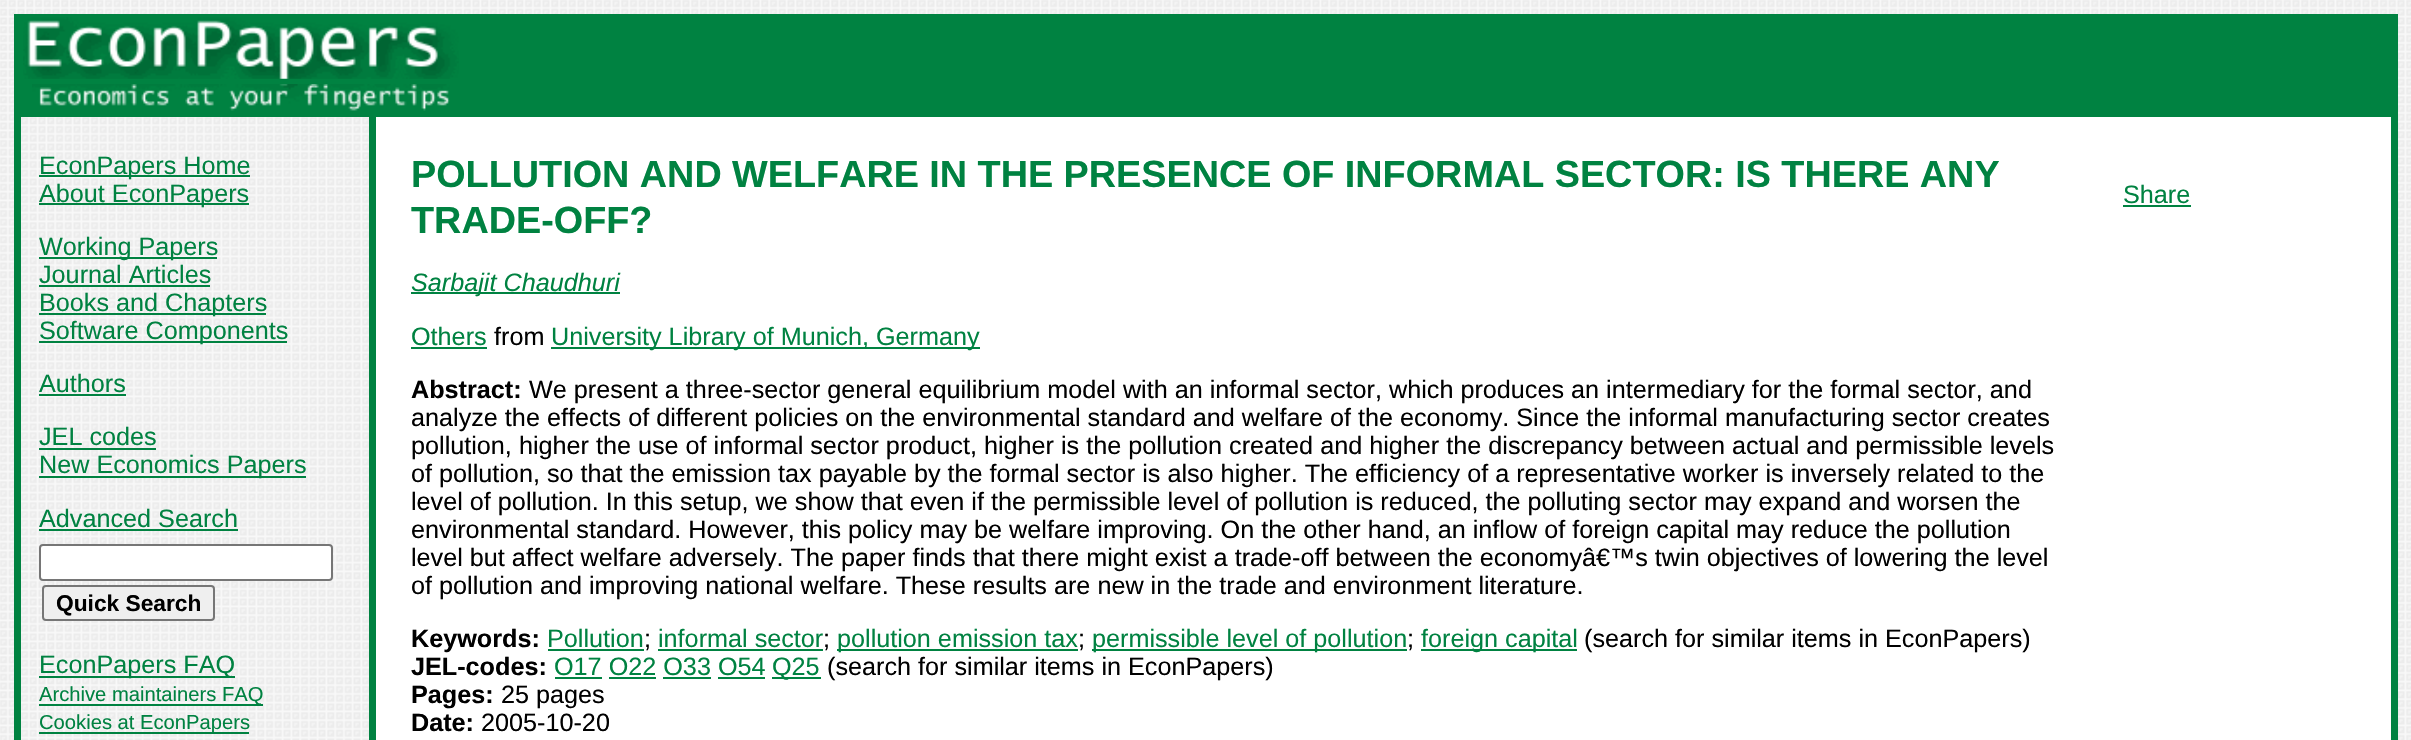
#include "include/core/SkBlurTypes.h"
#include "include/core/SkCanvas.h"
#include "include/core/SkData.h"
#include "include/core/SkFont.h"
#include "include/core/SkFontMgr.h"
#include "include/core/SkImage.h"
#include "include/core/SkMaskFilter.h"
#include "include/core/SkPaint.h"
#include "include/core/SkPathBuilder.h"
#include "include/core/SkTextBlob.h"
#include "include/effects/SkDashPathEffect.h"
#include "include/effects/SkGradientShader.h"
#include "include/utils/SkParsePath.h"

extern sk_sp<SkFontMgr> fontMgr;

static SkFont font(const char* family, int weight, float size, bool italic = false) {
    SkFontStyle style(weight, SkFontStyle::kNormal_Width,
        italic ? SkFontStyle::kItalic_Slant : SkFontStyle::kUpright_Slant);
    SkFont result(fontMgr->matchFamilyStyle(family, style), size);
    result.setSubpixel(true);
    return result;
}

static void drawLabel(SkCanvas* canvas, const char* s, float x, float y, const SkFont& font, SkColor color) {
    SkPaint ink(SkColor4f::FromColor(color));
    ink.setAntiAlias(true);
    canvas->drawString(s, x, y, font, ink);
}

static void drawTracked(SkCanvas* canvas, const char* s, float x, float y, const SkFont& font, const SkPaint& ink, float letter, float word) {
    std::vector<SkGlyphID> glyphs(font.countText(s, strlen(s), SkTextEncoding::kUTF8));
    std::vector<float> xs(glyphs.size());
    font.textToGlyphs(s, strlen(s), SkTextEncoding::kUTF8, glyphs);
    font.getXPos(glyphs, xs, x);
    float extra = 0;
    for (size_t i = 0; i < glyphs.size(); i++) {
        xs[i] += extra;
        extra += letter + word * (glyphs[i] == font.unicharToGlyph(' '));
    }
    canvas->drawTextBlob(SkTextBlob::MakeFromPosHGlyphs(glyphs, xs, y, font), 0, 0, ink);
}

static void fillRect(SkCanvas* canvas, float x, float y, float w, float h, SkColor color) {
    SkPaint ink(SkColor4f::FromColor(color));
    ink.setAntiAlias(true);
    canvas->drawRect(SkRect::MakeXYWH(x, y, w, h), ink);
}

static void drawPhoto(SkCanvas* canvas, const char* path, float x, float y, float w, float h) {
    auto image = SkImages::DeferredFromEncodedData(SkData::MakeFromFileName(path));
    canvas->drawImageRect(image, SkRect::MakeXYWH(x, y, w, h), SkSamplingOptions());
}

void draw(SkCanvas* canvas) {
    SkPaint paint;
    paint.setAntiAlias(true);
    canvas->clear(0xFFFFFFFF);
    drawPhoto(canvas, "assets/img1.png", 0, 0, 2411, 740);
    fillRect(canvas, 14, 14, 7, 726, 0xFF008241);
    fillRect(canvas, 21, 14, 2370, 70, 0xFF008241);
    drawPhoto(canvas, "assets/img2.png", 23, 17, 436, 62);
    fillRect(canvas, 2391, 14, 7, 726, 0xFF008241);
    fillRect(canvas, 21, 84, 2370, 33, 0xFF008241);
    drawPhoto(canvas, "assets/img3.png", 32, 84, 418, 27);
    drawPhoto(canvas, "assets/img4.png", 21, 117, 348, 623);
    fillRect(canvas, 39, 175, 211, 2, 0xFF008241);
    SkFont font1 = font("Liberation Sans", 400, 25.2f);
    drawLabel(canvas, "EconPapers Home", 39, 174, font1, 0xFF008241);
    fillRect(canvas, 39, 203, 210, 2, 0xFF008241);
    drawLabel(canvas, "About EconPapers", 39, 202, font1, 0xFF008241);
    fillRect(canvas, 39, 257, 178, 2, 0xFF008241);
    drawLabel(canvas, "Working Papers", 39, 255, font1, 0xFF008241);
    drawLabel(canvas, "Journal Articles", 39, 283, font1, 0xFF008241);
    fillRect(canvas, 39, 285, 171, 2, 0xFF008241);
    fillRect(canvas, 39, 313, 227, 2, 0xFF008241);
    drawLabel(canvas, "Books and Chapters", 39, 311, font1, 0xFF008241);
    fillRect(canvas, 39, 341, 248, 2, 0xFF008241);
    drawLabel(canvas, "Software Components", 39, 339, font1, 0xFF008241);
    drawLabel(canvas, "Authors", 39, 392, font1, 0xFF008241);
    fillRect(canvas, 39, 394, 87, 2, 0xFF008241);
    drawLabel(canvas, "JEL codes", 39, 445, font1, 0xFF008241);
    fillRect(canvas, 39, 448, 117, 2, 0xFF008241);
    fillRect(canvas, 39, 476, 267, 2, 0xFF008241);
    drawLabel(canvas, "New Economics Papers", 39, 473, font1, 0xFF008241);
    drawLabel(canvas, "Advanced Search", 39, 527, font1, 0xFF008241);
    fillRect(canvas, 39, 529, 199, 2, 0xFF008241);
    paint.setColor(0xFFFFFFFF);
    canvas->drawRoundRect(SkRect::MakeXYWH(40, 545, 292, 35), 3, 3, paint);
    paint.setStroke(true);
    paint.setStrokeWidth(2);
    paint.setColor(0xFF767676);
    canvas->drawRoundRect(SkRect::MakeXYWH(40, 545, 292, 35), 3, 3, paint);
    paint.setStroke(false);
    paint.setColor(0xFFEFEFEF);
    canvas->drawRoundRect(SkRect::MakeXYWH(43, 586, 171, 34), 3, 3, paint);
    paint.setStroke(true);
    paint.setColor(0xFF767676);
    canvas->drawRoundRect(SkRect::MakeXYWH(43, 586, 171, 34), 3, 3, paint);
    SkFont font2 = font("Liberation Sans", 700, 22.75f);
    drawLabel(canvas, "Quick Search", 56, 611, font2, 0xFF000000);
    fillRect(canvas, 39, 676, 196, 2, 0xFF008241);
    drawLabel(canvas, "EconPapers FAQ", 39, 673, font1, 0xFF008241);
    fillRect(canvas, 39, 704, 224, 2, 0xFF008241);
    SkFont font3 = font("Liberation Sans", 400, 20.2f);
    drawLabel(canvas, "Archive maintainers FAQ", 39, 701, font3, 0xFF008241);
    fillRect(canvas, 39, 732, 210, 2, 0xFF008241);
    drawLabel(canvas, "Cookies at EconPapers", 39, 729, font3, 0xFF008241);
    fillRect(canvas, 369, 117, 7, 623, 0xFF008241);
    fillRect(canvas, 376, 117, 2015, 623, 0xFFFFFFFF);
    SkFont font4 = font("Liberation Sans", 700, 37.8f);
    paint.setStroke(false);
    paint.setColor(0xFF008241);
    drawTracked(canvas, "POLLUTION AND WELFARE IN THE PRESENCE OF INFORMAL SECTOR: IS THERE ANY", 411, 187, font4, paint, 0, -0.1f);
    drawLabel(canvas, "TRADE-OFF?", 411, 233, font4, 0xFF008241);
    fillRect(canvas, 411, 292, 209, 2, 0xFF008241);
    SkFont font5 = font("Liberation Sans", 400, 25.2f, true);
    drawLabel(canvas, "Sarbajit Chaudhuri", 411, 291, font5, 0xFF008241);
    drawLabel(canvas, "Others", 411, 345, font1, 0xFF008241);
    fillRect(canvas, 411, 347, 76, 2, 0xFF008241);
    drawLabel(canvas, "from", 494, 345, font1, 0xFF000000);
    fillRect(canvas, 551, 347, 429, 2, 0xFF008241);
    drawLabel(canvas, "University Library of Munich, Germany", 551, 345, font1, 0xFF008241);
    SkFont font6 = font("Liberation Sans", 700, 25.2f);
    drawLabel(canvas, "Abstract:", 411, 398, font6, 0xFF000000);
    drawLabel(canvas, "We present a three-sector general equilibrium model with an informal sector, which produces an intermediary for the formal sector, and", 529, 398, font1, 0xFF000000);
    drawLabel(canvas, "analyze the effects of different policies on the environmental standard and welfare of the economy. Since the informal manufacturing sector creates", 411, 426, font1, 0xFF000000);
    drawLabel(canvas, "pollution, higher the use of informal sector product, higher is the pollution created and higher the discrepancy between actual and permissible levels", 411, 454, font1, 0xFF000000);
    drawLabel(canvas, "of pollution, so that the emission tax payable by the formal sector is also higher. The efficiency of a representative worker is inversely related to the", 411, 482, font1, 0xFF000000);
    drawLabel(canvas, "level of pollution. In this setup, we show that even if the permissible level of pollution is reduced, the polluting sector may expand and worsen the", 411, 510, font1, 0xFF000000);
    drawLabel(canvas, "environmental standard. However, this policy may be welfare improving. On the other hand, an inflow of foreign capital may reduce the pollution", 411, 538, font1, 0xFF000000);
    drawLabel(canvas, "level but affect welfare adversely. The paper finds that there might exist a trade-off between the economyâ€™s twin objectives of lowering the level", 411, 566, font1, 0xFF000000);
    drawLabel(canvas, "of pollution and improving national welfare. These results are new in the trade and environment literature.", 411, 594, font1, 0xFF000000);
    drawLabel(canvas, "Keywords:", 411, 647, font6, 0xFF000000);
    drawLabel(canvas, "Pollution", 547, 647, font1, 0xFF008241);
    fillRect(canvas, 548, 649, 96, 2, 0xFF008241);
    drawLabel(canvas, ";", 644, 647, font1, 0xFF000000);
    drawLabel(canvas, "informal sector", 658, 647, font1, 0xFF008241);
    fillRect(canvas, 658, 649, 165, 2, 0xFF008241);
    drawLabel(canvas, ";", 823, 647, font1, 0xFF000000);
    fillRect(canvas, 837, 649, 241, 2, 0xFF008241);
    drawLabel(canvas, "pollution emission tax", 837, 647, font1, 0xFF008241);
    drawLabel(canvas, ";", 1078, 647, font1, 0xFF000000);
    fillRect(canvas, 1092, 649, 315, 2, 0xFF008241);
    drawLabel(canvas, "permissible level of pollution", 1092, 647, font1, 0xFF008241);
    drawLabel(canvas, ";", 1407, 647, font1, 0xFF000000);
    fillRect(canvas, 1421, 649, 156, 2, 0xFF008241);
    drawLabel(canvas, "foreign capital", 1421, 647, font1, 0xFF008241);
    drawLabel(canvas, "(search for similar items in EconPapers)", 1584, 647, font1, 0xFF000000);
    drawLabel(canvas, "JEL-codes:", 411, 675, font6, 0xFF000000);
    drawLabel(canvas, "O17 O22 O33 O54", 554, 675, font1, 0xFF008241);
    fillRect(canvas, 555, 677, 47, 2, 0xFF008241);
    fillRect(canvas, 772, 677, 49, 2, 0xFF008241);
    drawLabel(canvas, "Q25", 772, 675, font1, 0xFF008241);
    drawLabel(canvas, "(search for similar items in EconPapers)", 827, 675, font1, 0xFF000000);
    fillRect(canvas, 609, 677, 47, 2, 0xFF008241);
    fillRect(canvas, 663, 677, 48, 2, 0xFF008241);
    fillRect(canvas, 718, 677, 47, 2, 0xFF008241);
    drawLabel(canvas, "Pages:", 411, 703, font6, 0xFF000000);
    drawLabel(canvas, "25 pages", 501, 703, font1, 0xFF000000);
    drawLabel(canvas, "Date:", 411, 731, font6, 0xFF000000);
    drawLabel(canvas, "2005-10-20", 481, 731, font1, 0xFF000000);
    drawLabel(canvas, "Share", 2123, 203, font1, 0xFF008241);
    fillRect(canvas, 2123, 205, 68, 2, 0xFF008241);
}
